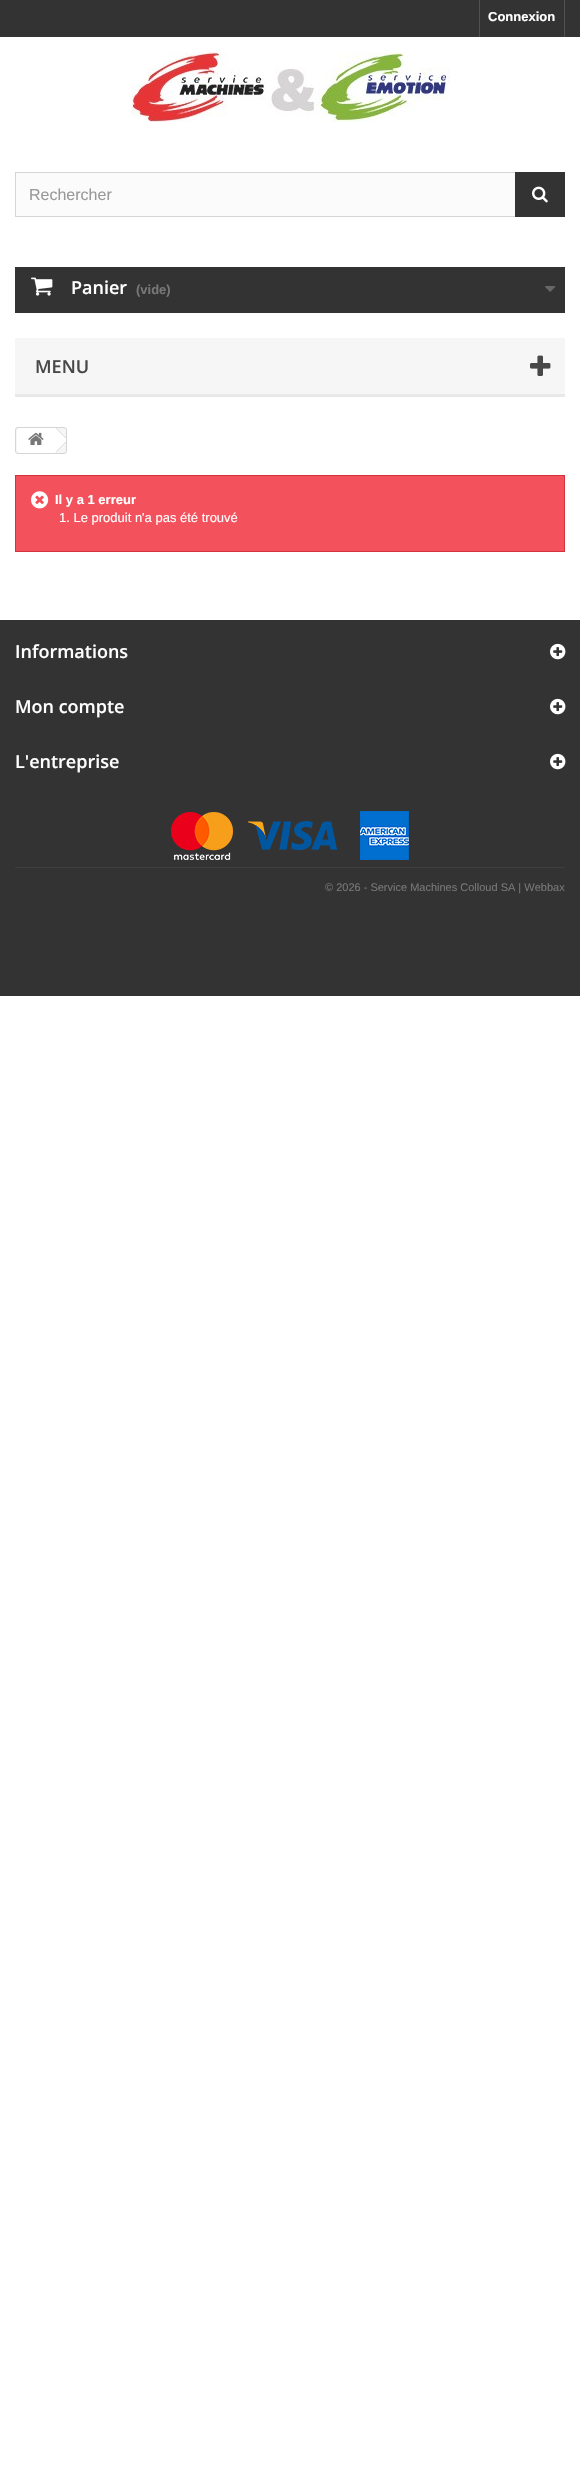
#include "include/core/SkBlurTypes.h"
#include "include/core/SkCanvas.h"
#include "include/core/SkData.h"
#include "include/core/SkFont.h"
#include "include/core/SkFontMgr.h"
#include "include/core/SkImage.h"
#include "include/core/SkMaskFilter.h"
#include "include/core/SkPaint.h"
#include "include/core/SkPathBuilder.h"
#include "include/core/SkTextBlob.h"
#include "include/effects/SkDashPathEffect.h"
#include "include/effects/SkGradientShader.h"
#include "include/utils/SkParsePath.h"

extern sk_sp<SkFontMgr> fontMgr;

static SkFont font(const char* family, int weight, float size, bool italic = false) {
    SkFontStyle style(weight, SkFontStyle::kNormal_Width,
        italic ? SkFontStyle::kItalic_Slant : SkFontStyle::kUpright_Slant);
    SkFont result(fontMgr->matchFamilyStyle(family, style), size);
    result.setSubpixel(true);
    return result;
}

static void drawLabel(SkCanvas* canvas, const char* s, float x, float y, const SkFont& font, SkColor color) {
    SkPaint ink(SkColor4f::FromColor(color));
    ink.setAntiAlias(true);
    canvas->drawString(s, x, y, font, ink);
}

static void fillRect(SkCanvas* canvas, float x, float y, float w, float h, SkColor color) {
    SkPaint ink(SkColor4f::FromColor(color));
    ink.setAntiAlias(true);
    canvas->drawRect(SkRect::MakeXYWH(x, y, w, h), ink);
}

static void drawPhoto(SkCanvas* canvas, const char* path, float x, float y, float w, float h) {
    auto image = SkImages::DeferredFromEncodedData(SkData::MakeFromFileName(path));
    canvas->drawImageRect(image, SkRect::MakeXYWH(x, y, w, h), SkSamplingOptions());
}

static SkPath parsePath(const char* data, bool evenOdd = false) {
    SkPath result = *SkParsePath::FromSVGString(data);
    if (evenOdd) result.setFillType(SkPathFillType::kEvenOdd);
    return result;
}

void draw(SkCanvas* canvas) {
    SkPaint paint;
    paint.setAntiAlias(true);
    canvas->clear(0xFFFFFFFF);
    fillRect(canvas, 0, 0, 580, 37, 0xFF333333);
    fillRect(canvas, 564, 0, 1, 37, 0xFF515151);
    fillRect(canvas, 479, 0, 1, 37, 0xFF515151);
    SkFont font1 = font("Liberation Sans", 700, 13);
    drawLabel(canvas, "Connexion", 488, 21, font1, 0xFFFFFFFF);
    drawPhoto(canvas, "assets/img1.png", 131, 52, 319, 70);
    fillRect(canvas, 16, 173, 499, 43, 0xFFFBFBFB);
    paint.setStroke(true);
    paint.setStrokeWidth(1);
    paint.setColor(0xFFD6D4D4);
    canvas->drawRect(SkRect::MakeXYWH(15.5f, 172.5f, 549, 44), paint);
    SkFont font2 = font("Liberation Sans", 400, 16);
    drawLabel(canvas, "Rechercher", 29, 200, font2, 0xFF999999);
    fillRect(canvas, 515, 172, 50, 45, 0xFF333333);
    drawPhoto(canvas, "assets/img2.png", 532, 186, 16, 17);
    fillRect(canvas, 15, 267, 550, 46, 0xFF333333);
    drawPhoto(canvas, "assets/img3.png", 31, 277, 22, 19);
    SkFont font3 = font("Open Sans", 600, 18);
    drawLabel(canvas, "Panier", 71, 294, font3, 0xFFFFFFFF);
    drawLabel(canvas, "(vide)", 136, 294, font1, 0xFF777777);
    drawPhoto(canvas, "assets/img4.png", 545, 286, 11, 6);
    fillRect(canvas, 15, 338, 550, 56, 0xFFF6F6F6);
    fillRect(canvas, 15, 394, 550, 3, 0xFFE9E9E9);
    drawLabel(canvas, "MENU", 35, 373, font3, 0xFF484848);
    drawPhoto(canvas, "assets/img5.png", 530, 355, 21, 21);
    paint.setStroke(false);
    paint.setColor(0xFFF6F6F6);
    canvas->drawRoundRect(SkRect::MakeXYWH(15.5f, 427.5f, 51, 26), 2.5f, 2.5f, paint);
    paint.setStroke(true);
    paint.setColor(0xFFD6D4D4);
    canvas->drawRoundRect(SkRect::MakeXYWH(15.5f, 427.5f, 51, 26), 2.5f, 2.5f, paint);
    paint.setStroke(false);
    paint.setColor(0xFFFFFFFF);
    canvas->drawPath(parsePath("M20 428H55V453H20C18.5 453 17 451.5 17 450V431C17 429.5 18.5 428 20 428Z"), paint);
    drawPhoto(canvas, "assets/img6.png", 28, 432, 16, 13);
    canvas->drawPath(parsePath("M57.5 428.5L66 437V443L57.5 451.5C56.5 452 55.5 452 54.5 451.5L44.5 441.5C44 440.5 44 439.5 44.5 438.5L54.5 428.5C55.5 428 56.5 428 57.5 428.5Z"), paint);
    paint.setColor(0xFFD6D4D4);
    canvas->drawPath(parsePath("M56.5 428L66 437.5V438.5L56 428.5ZM66 441.5V442.5L56.5 452L56 451.5Z"), paint);
    paint.setColor(0xFFF3515C);
    canvas->drawRect(SkRect::MakeXYWH(15.5f, 475.5f, 549, 76), paint);
    paint.setStroke(true);
    paint.setColor(0xFFD4323D);
    canvas->drawRect(SkRect::MakeXYWH(15.5f, 475.5f, 549, 76), paint);
    drawPhoto(canvas, "assets/img7.png", 31, 491, 18, 18);
    drawLabel(canvas, "Il y a 1 erreur", 55, 504, font1, 0xFFFFFFFF);
    SkFont font4 = font("Liberation Sans", 400, 13);
    drawLabel(canvas, "1. Le produit n'a pas été trouvé", 59, 522, font4, 0xFFFFFFFF);
    fillRect(canvas, 0, 620, 580, 376, 0xFF333333);
    drawLabel(canvas, "Informations", 15, 658, font3, 0xFFFFFFFF);
    drawPhoto(canvas, "assets/img8.png", 550, 643, 16, 17);
    drawLabel(canvas, "Mon compte", 15, 713, font3, 0xFFFFFFFF);
    drawPhoto(canvas, "assets/img8.png", 550, 698, 16, 17);
    drawLabel(canvas, "L'entreprise", 15, 768, font3, 0xFFFFFFFF);
    drawPhoto(canvas, "assets/img8.png", 550, 753, 16, 17);
    drawPhoto(canvas, "assets/img9.png", 171, 811, 238, 49);
    fillRect(canvas, 15, 867, 550, 1, 0xFF3E3E3E);
    SkFont font5 = font("Liberation Sans", 400, 11);
    drawLabel(canvas, "© 2026 - Service Machines Colloud SA | Webbax", 325, 891, font5, 0xFF777777);
}
